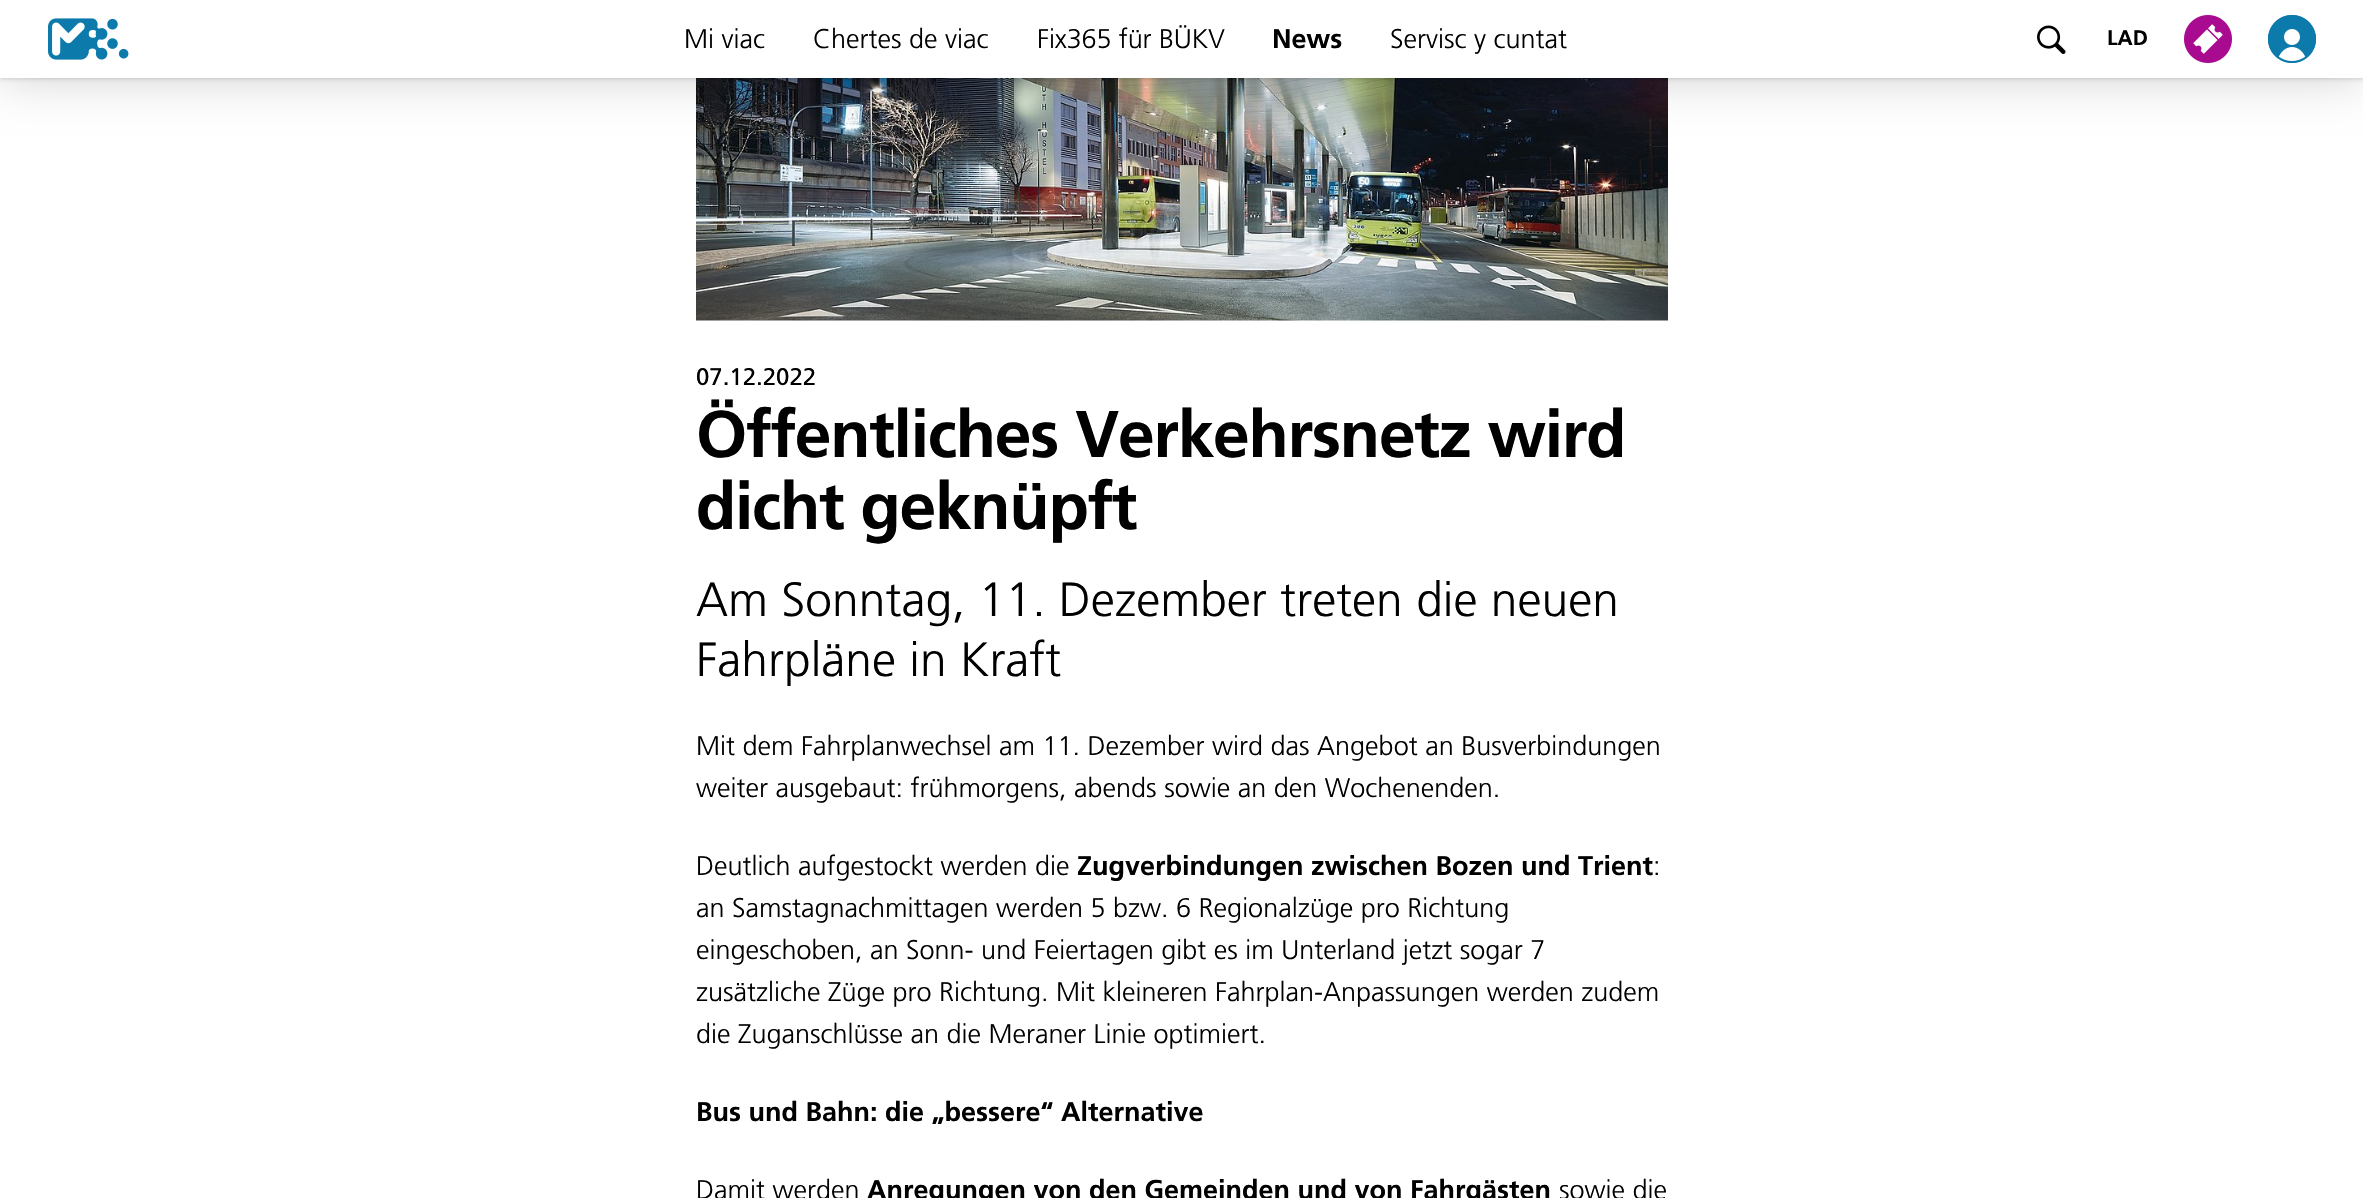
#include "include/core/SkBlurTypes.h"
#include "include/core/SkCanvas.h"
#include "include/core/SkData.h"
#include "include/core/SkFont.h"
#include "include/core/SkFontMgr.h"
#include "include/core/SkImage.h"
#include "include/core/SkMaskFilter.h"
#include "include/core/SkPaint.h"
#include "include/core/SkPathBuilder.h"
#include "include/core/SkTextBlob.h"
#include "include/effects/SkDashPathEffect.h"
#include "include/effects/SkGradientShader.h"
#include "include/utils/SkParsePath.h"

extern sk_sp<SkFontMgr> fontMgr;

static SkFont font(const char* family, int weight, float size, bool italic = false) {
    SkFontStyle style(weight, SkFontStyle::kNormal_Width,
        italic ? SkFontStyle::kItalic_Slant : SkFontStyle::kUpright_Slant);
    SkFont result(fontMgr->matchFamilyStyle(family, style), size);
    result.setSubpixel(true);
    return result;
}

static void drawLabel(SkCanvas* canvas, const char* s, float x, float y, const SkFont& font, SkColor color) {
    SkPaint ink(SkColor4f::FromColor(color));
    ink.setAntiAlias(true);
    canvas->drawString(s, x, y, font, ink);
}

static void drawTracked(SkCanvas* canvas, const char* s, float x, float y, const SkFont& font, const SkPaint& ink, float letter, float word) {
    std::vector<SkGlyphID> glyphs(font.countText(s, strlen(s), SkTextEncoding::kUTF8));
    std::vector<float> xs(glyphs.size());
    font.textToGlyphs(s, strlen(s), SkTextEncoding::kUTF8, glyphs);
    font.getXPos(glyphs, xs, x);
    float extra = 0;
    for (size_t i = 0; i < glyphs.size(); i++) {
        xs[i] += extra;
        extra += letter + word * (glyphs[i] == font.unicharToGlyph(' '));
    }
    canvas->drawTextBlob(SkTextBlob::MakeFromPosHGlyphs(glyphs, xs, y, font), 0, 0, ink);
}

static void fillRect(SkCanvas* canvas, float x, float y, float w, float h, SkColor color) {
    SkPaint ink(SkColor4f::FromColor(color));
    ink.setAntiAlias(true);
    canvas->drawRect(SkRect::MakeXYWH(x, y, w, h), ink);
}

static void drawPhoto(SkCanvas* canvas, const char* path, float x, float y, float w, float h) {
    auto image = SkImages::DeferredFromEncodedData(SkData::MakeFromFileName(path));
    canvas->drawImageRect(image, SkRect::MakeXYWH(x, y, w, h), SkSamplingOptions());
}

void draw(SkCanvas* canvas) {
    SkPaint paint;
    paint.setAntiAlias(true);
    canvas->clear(0xFFFFFFFF);
    drawPhoto(canvas, "assets/img5.png", 696, 78, 972, 243);
    paint.setColor(0x29000000);
    paint.setMaskFilter(SkMaskFilter::MakeBlur(kNormal_SkBlurStyle, 24));
    canvas->drawRect(SkRect::MakeXYWH(0, 3, 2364, 78), paint);
    paint.setMaskFilter(nullptr);
    paint.setColor(0x1A000000);
    paint.setMaskFilter(SkMaskFilter::MakeBlur(kNormal_SkBlurStyle, 1.5f));
    canvas->drawRect(SkRect::MakeXYWH(0, 2, 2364, 78), paint);
    paint.setMaskFilter(nullptr);
    fillRect(canvas, 0, 0, 2363, 78, 0xFFFFFFFF);
    drawPhoto(canvas, "assets/img1.png", 48, 18, 81, 42);
    SkFont font1 = font("Frutiger", 300, 27);
    drawLabel(canvas, "Mi viac", 684, 48, font1, 0xFF000000);
    drawLabel(canvas, "Chertes de viac", 813, 48, font1, 0xFF000000);
    paint.setColor(0xFF000000);
    drawTracked(canvas, "Fix365 für BÜKV", 1037, 48, font1, paint, -0.1f, 0);
    SkFont font2 = font("Frutiger", 700, 27);
    drawTracked(canvas, "News", 1272, 48, font2, paint, -0.1f, 0);
    drawLabel(canvas, "Servisc y cuntat", 1390, 48, font1, 0xFF000000);
    drawPhoto(canvas, "assets/img2.png", 2037, 25, 29, 29);
    SkFont font3 = font("Frutiger", 700, 21);
    drawLabel(canvas, "LAD", 2107, 45, font3, 0xFF000000);
    drawPhoto(canvas, "assets/img3.png", 2184, 15, 48, 48);
    drawPhoto(canvas, "assets/img4.png", 2268, 15, 48, 48);
    SkFont font4 = font("Frutiger", 400, 24);
    drawLabel(canvas, "07.12.2022", 696, 385, font4, 0xFF000000);
    SkFont font5 = font("Frutiger", 700, 66);
    drawTracked(canvas, "Öffentliches Verkehrsnetz wird", 696, 457, font5, paint, -1.3f, 0);
    drawTracked(canvas, "dicht geknüpft", 696, 529, font5, paint, -1.3f, 0);
    SkFont font6 = font("Frutiger", 300, 48);
    drawLabel(canvas, "Am Sonntag, 11. Dezember treten die neuen", 696, 616, font6, 0xFF000000);
    drawLabel(canvas, "Fahrpläne in Kraft", 696, 676, font6, 0xFF000000);
    drawLabel(canvas, "Mit dem Fahrplanwechsel am 11. Dezember wird das Angebot an Busverbindungen", 696, 755, font1, 0xFF000000);
    drawLabel(canvas, "weiter ausgebaut: frühmorgens, abends sowie an den Wochenenden.", 696, 797, font1, 0xFF000000);
    drawLabel(canvas, "Deutlich aufgestockt werden die", 696, 875, font1, 0xFF000000);
    drawLabel(canvas, "Zugverbindungen zwischen Bozen und Trient", 1077, 875, font2, 0xFF000000);
    drawLabel(canvas, ":", 1653, 875, font1, 0xFF000000);
    drawLabel(canvas, "an Samstagnachmittagen werden 5 bzw. 6 Regionalzüge pro Richtung", 696, 917, font1, 0xFF000000);
    drawLabel(canvas, "eingeschoben, an Sonn- und Feiertagen gibt es im Unterland jetzt sogar 7", 696, 959, font1, 0xFF000000);
    drawLabel(canvas, "zusätzliche Züge pro Richtung. Mit kleineren Fahrplan-Anpassungen werden zudem", 696, 1001, font1, 0xFF000000);
    drawLabel(canvas, "die Zuganschlüsse an die Meraner Linie optimiert.", 696, 1043, font1, 0xFF000000);
    drawLabel(canvas, "Bus und Bahn: die „bessere“ Alternative", 696, 1121, font2, 0xFF000000);
    drawLabel(canvas, "Damit werden", 696, 1199, font1, 0xFF000000);
    drawLabel(canvas, "Anregungen von den Gemeinden und von Fahrgästen", 867, 1199, font2, 0xFF000000);
    drawLabel(canvas, "sowie die", 1559, 1199, font1, 0xFF000000);
}
